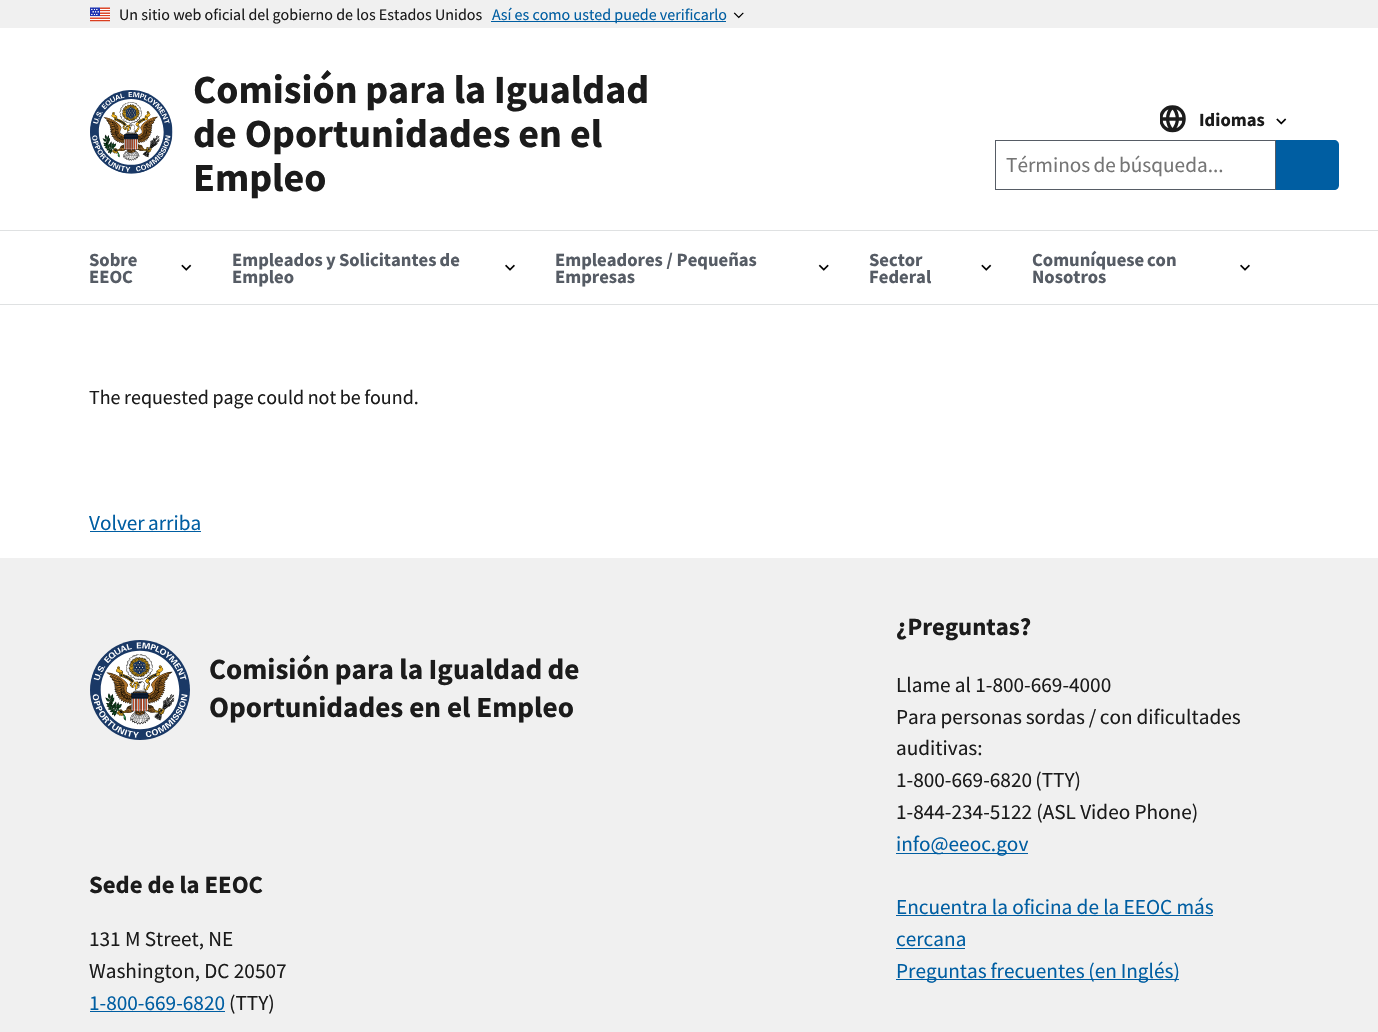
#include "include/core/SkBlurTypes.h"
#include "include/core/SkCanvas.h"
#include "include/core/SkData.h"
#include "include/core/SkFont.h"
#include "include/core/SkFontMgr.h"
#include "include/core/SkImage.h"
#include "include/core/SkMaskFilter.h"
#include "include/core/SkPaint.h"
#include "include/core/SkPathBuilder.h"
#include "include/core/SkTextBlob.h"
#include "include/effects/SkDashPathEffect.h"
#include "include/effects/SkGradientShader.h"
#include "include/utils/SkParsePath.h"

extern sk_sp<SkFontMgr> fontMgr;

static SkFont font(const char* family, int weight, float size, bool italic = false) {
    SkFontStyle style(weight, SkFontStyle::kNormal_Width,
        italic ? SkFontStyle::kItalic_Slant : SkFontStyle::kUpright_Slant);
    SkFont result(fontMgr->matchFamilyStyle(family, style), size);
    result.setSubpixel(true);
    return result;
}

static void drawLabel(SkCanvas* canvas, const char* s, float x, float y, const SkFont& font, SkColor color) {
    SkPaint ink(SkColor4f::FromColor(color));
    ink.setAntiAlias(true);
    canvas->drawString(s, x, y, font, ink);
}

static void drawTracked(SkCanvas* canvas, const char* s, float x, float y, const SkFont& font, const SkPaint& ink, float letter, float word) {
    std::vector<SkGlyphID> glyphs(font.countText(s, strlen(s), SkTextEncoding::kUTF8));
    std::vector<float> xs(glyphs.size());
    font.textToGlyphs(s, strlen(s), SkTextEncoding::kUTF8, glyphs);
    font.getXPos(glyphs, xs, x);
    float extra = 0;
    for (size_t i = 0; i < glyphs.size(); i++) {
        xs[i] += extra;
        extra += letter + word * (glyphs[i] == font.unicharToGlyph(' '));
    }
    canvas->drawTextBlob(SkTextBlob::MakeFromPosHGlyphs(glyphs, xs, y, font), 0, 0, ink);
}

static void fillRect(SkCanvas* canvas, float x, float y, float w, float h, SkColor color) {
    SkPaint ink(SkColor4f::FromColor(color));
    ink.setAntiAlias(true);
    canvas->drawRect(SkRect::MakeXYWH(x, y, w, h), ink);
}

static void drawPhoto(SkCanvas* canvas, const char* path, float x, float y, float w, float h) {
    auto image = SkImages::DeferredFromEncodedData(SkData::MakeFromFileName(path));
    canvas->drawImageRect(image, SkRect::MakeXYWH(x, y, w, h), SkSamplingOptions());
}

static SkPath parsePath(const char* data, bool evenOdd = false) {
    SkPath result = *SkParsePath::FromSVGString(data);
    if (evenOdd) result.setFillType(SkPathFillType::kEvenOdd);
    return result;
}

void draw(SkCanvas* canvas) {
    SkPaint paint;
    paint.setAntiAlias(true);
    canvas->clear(0xFFFFFFFF);
    fillRect(canvas, 0, 0, 1378, 28, 0xFFF0F0F0);
    drawPhoto(canvas, "assets/img1.png", 90, 7, 20, 15);
    SkFont font1 = font("Source Sans Pro", 400, 16);
    drawLabel(canvas, "Un sitio web oficial del gobierno de los Estados Unidos", 119, 20, font1, 0xFF1B1B1B);
    fillRect(canvas, 491, 21, 235, 1, 0xFF005EA2);
    drawLabel(canvas, "Así es como usted puede verificarlo", 492, 20, font1, 0xFF005EA2);
    drawPhoto(canvas, "assets/img2.png", 733, 12, 11, 7);
    drawPhoto(canvas, "assets/img3.png", 90, 90, 83, 84);
    SkFont font2 = font("Source Sans Pro", 700, 40);
    paint.setColor(0xFF1B1B1B);
    drawTracked(canvas, "Comisión para la Igualdad", 193, 103, font2, paint, 0, -0.5f);
    drawLabel(canvas, "de Oportunidades en el", 193, 147, font2, 0xFF1B1B1B);
    drawLabel(canvas, "Empleo", 193, 191, font2, 0xFF1B1B1B);
    fillRect(canvas, 0, 230, 1378, 1, 0xFFDFE1E2);
    canvas->save();
    canvas->clipRect(SkRect::MakeXYWH(1160, 104, 26, 30));
    paint.setStroke(true);
    paint.setStrokeWidth(3.3f);
    paint.setStrokeCap(SkPaint::kRound_Cap);
    paint.setStrokeJoin(SkPaint::kRound_Join);
    paint.setColor(0xFF1C1C1C);
    canvas->drawPath(parsePath("M1172.5 130.5C1188 130.5 1188 107 1172.5 107C1157 107 1157 130.5 1172.5 130.5ZM1161 119H1184M1172.5 107C1179 113.5 1179 124 1172.5 130.5C1166 124 1166 113.5 1172.5 107Z"), paint);
    canvas->restore();
    SkFont font3 = font("Source Sans Pro", 700, 18.6f);
    drawLabel(canvas, "Idiomas", 1199, 126, font3, 0xFF1B1B1B);
    drawPhoto(canvas, "assets/img4.png", 1276, 118, 11, 7);
    drawLabel(canvas, "Sobre", 89, 266, font3, 0xFF565C65);
    drawPhoto(canvas, "assets/img5.png", 181, 264, 11, 7);
    drawLabel(canvas, "EEOC", 89, 283, font3, 0xFF565C65);
    paint.setStroke(false);
    paint.setColor(0xFF565C65);
    drawTracked(canvas, "Empleados y Solicitantes de", 232, 266, font3, paint, 0, -0.5f);
    drawPhoto(canvas, "assets/img6.png", 505, 264, 10, 7);
    drawLabel(canvas, "Empleo", 232, 283, font3, 0xFF565C65);
    drawLabel(canvas, "Empleadores / Pequeñas", 555, 266, font3, 0xFF565C65);
    drawPhoto(canvas, "assets/img7.png", 818, 264, 11, 7);
    drawLabel(canvas, "Empresas", 555, 283, font3, 0xFF565C65);
    drawLabel(canvas, "Sector", 869, 266, font3, 0xFF565C65);
    drawPhoto(canvas, "assets/img5.png", 981, 264, 11, 7);
    drawLabel(canvas, "Federal", 869, 283, font3, 0xFF565C65);
    drawTracked(canvas, "Comuníquese con", 1032, 266, font3, paint, 0, -1);
    drawPhoto(canvas, "assets/img6.png", 1240, 264, 10, 7);
    drawLabel(canvas, "Nosotros", 1032, 283, font3, 0xFF565C65);
    paint.setStroke(true);
    paint.setStrokeWidth(1);
    paint.setStrokeCap(SkPaint::kButt_Cap);
    paint.setStrokeJoin(SkPaint::kMiter_Join);
    canvas->drawRect(SkRect::MakeXYWH(995.5f, 140.5f, 280, 49), paint);
    SkFont font4 = font("Source Sans Pro", 400, 21.25f);
    paint.setStroke(false);
    paint.setColor(0xFF757575);
    drawTracked(canvas, "Términos de búsqueda...", 1006, 172, font4, paint, 0, -1);
    paint.setColor(0xFF005EA2);
    canvas->drawPath(parsePath("M1276 140H1334C1337 140 1339 142 1339 145V185C1339 188 1337 190 1334 190H1276Z"), paint);
    fillRect(canvas, 0, 304, 1378, 1, 0xFFDFE1E2);
    SkFont font5 = font("Source Sans Pro", 400, 20);
    paint.setColor(0xFF1B1B1B);
    drawTracked(canvas, "The requested page could not be found.", 89, 404, font5, paint, 0, -0.5f);
    paint.setColor(0xFF005EA2);
    drawTracked(canvas, "Volver arriba", 89, 530, font4, paint, 0, -1);
    fillRect(canvas, 90, 531, 111, 1, 0xFF005EA2);
    fillRect(canvas, 0, 558, 1378, 474, 0xFFF0F0F0);
    drawPhoto(canvas, "assets/img8.png", 90, 640, 100, 100);
    SkFont font6 = font("Source Sans Pro", 700, 29.25f);
    paint.setColor(0xFF1B1B1B);
    drawTracked(canvas, "Comisión para la Igualdad de", 209, 679, font6, paint, 0, -0.5f);
    drawLabel(canvas, "Oportunidades en el Empleo", 209, 717, font6, 0xFF1B1B1B);
    SkFont font7 = font("Source Sans Pro", 700, 24.75f);
    drawLabel(canvas, "Sede de la EEOC", 89, 893, font7, 0xFF1B1B1B);
    drawLabel(canvas, "131 M Street, NE", 89, 946, font4, 0xFF1B1B1B);
    drawLabel(canvas, "Washington, DC 20507", 89, 978, font4, 0xFF1B1B1B);
    drawLabel(canvas, "1-800-669-6820", 89, 1010, font4, 0xFF005EA2);
    fillRect(canvas, 90, 1011, 135, 1, 0xFF005EA2);
    drawLabel(canvas, "(TTY)", 229, 1010, font4, 0xFF1B1B1B);
    drawLabel(canvas, "¿Preguntas?", 896, 635, font7, 0xFF1B1B1B);
    drawLabel(canvas, "Llame al 1-800-669-4000", 896, 692, font4, 0xFF1B1B1B);
    drawTracked(canvas, "Para personas sordas / con dificultades", 896, 724, font4, paint, 0, -0.5f);
    drawLabel(canvas, "auditivas:", 896, 755, font4, 0xFF1B1B1B);
    drawTracked(canvas, "1-800-669-6820 (TTY)", 896, 787, font4, paint, 0, -1);
    drawLabel(canvas, "1-844-234-5122 (ASL Video Phone)", 896, 819, font4, 0xFF1B1B1B);
    fillRect(canvas, 896, 853, 132, 1, 0xFF005EA2);
    drawLabel(canvas, "info@eeoc.gov", 896, 851, font4, 0xFF005EA2);
    drawLabel(canvas, "Encuentra la oficina de la EEOC más", 896, 914, font4, 0xFF005EA2);
    fillRect(canvas, 896, 915, 317, 1, 0xFF005EA2);
    drawLabel(canvas, "cercana", 896, 946, font4, 0xFF005EA2);
    fillRect(canvas, 896, 948, 69, 1, 0xFF005EA2);
    fillRect(canvas, 896, 979, 283, 1, 0xFF005EA2);
    paint.setColor(0xFF005EA2);
    drawTracked(canvas, "Preguntas frecuentes (en Inglés)", 896, 978, font4, paint, 0, -0.5f);
}
